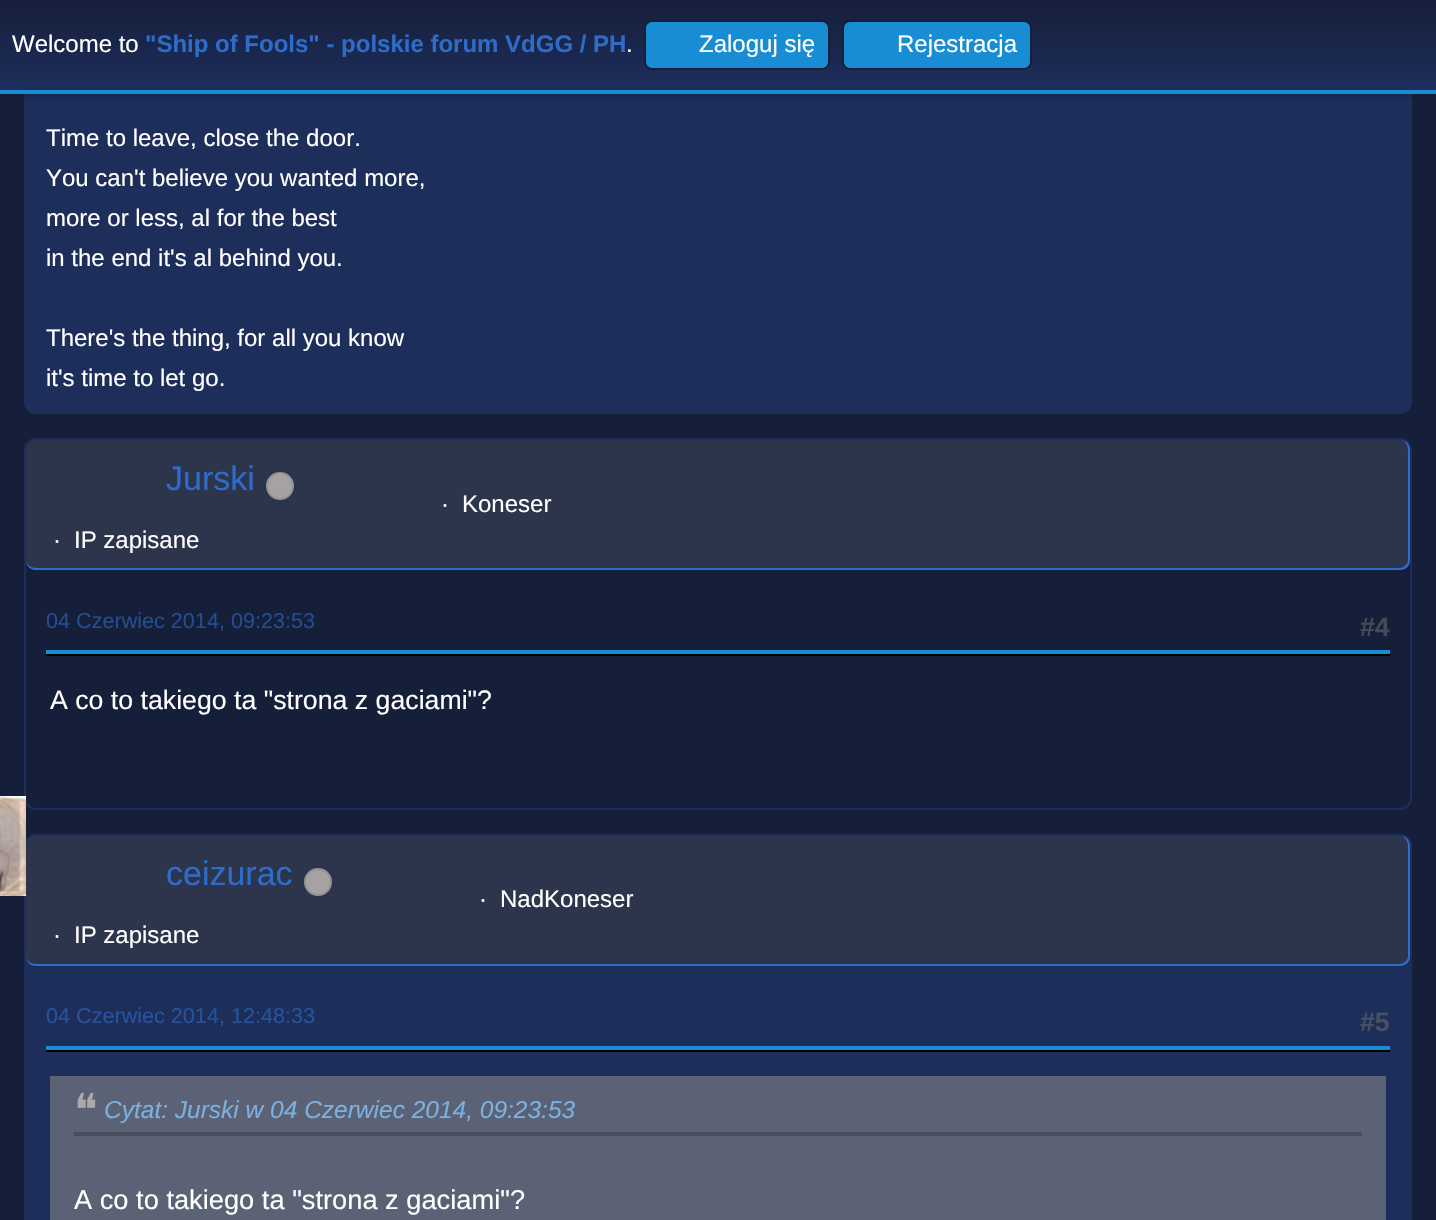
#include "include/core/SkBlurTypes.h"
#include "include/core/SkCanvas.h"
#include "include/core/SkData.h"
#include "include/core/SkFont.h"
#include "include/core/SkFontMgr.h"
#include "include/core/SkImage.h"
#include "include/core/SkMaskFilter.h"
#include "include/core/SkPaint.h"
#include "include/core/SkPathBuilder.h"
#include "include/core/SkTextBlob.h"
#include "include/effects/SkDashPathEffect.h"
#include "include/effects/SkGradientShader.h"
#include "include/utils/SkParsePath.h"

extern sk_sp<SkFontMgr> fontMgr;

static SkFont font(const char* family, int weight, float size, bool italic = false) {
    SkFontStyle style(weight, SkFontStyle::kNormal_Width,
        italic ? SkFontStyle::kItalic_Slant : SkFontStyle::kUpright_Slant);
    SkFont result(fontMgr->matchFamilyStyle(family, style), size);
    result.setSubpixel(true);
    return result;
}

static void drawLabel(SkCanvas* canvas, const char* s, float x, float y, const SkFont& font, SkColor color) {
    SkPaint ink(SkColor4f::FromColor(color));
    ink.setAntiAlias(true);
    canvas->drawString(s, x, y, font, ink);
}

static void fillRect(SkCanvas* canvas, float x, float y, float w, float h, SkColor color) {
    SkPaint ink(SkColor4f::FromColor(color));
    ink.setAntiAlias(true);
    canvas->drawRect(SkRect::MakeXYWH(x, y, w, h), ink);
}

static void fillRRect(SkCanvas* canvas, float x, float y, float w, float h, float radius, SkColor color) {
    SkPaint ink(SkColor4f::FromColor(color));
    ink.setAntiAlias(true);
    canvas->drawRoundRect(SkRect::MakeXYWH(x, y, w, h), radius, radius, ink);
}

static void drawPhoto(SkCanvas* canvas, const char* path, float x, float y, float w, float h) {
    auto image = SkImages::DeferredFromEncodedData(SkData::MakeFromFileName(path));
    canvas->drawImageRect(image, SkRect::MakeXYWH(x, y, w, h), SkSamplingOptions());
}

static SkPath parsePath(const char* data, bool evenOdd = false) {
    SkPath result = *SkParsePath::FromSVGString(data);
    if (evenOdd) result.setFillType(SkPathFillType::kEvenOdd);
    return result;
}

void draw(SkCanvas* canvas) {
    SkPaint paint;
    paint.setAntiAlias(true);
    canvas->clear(0xFF161F3A);
    paint.setColor(0xFF1D2E5A);
    canvas->drawRoundRect(SkRect::MakeXYWH(25, -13, 1386, 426), 11, 11, paint);
    paint.setStroke(true);
    paint.setStrokeWidth(2);
    canvas->drawRoundRect(SkRect::MakeXYWH(25, -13, 1386, 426), 11, 11, paint);
    paint.setStroke(false);
    paint.setColor(0x29000000);
    paint.setMaskFilter(SkMaskFilter::MakeBlur(kNormal_SkBlurStyle, 4));
    canvas->drawRect(SkRect::MakeXYWH(0, 2, 1436, 94), paint);
    paint.setMaskFilter(nullptr);
    {
        const SkColor colors[] = {0xFF161F3A, 0xFF1D2E5D};
        const float stops[] = {0, 1};
        const SkPoint ends[] = {{718, 0}, {718, 90}};
        paint.setShader(SkGradientShader::MakeLinear(ends, colors, stops, 2, SkTileMode::kClamp));
        paint.setAlpha(255);
    }
    canvas->drawRect(SkRect::MakeXYWH(0, 0, 1436, 90), paint);
    fillRect(canvas, 0, 90, 1436, 4, 0xFF188DD3);
    SkFont font1 = font("Liberation Sans", 400, 24);
    drawLabel(canvas, "Welcome to", 12, 52, font1, 0xFFFFFFFF);
    SkFont font2 = font("Liberation Sans", 700, 24);
    drawLabel(canvas, "\"Ship of Fools\" - polskie forum VdGG / PH", 145, 52, font2, 0xFF2E6CCB);
    drawLabel(canvas, ".", 626, 52, font1, 0xFFFFFFFF);
    paint.setShader(nullptr);
    paint.setColor(0xFF188DD3);
    canvas->drawRoundRect(SkRect::MakeXYWH(645, 21, 184, 48), 7, 7, paint);
    paint.setStroke(true);
    paint.setColor(0xFF161F3A);
    canvas->drawRoundRect(SkRect::MakeXYWH(645, 21, 184, 48), 7, 7, paint);
    drawLabel(canvas, "Zaloguj się", 699, 52, font1, 0xFFFFFFFF);
    paint.setStroke(false);
    paint.setColor(0xFF188DD3);
    canvas->drawRoundRect(SkRect::MakeXYWH(843, 21, 188, 48), 7, 7, paint);
    paint.setStroke(true);
    paint.setColor(0xFF161F3A);
    canvas->drawRoundRect(SkRect::MakeXYWH(843, 21, 188, 48), 7, 7, paint);
    drawLabel(canvas, "Rejestracja", 897, 52, font1, 0xFFFFFFFF);
    drawLabel(canvas, "Time to leave, close the door.", 46, 146, font1, 0xFFFFFFFF);
    drawLabel(canvas, "You can't believe you wanted more,", 46, 186, font1, 0xFFFFFFFF);
    drawLabel(canvas, "more or less, al for the best", 46, 226, font1, 0xFFFFFFFF);
    drawLabel(canvas, "in the end it's al behind you.", 46, 266, font1, 0xFFFFFFFF);
    drawLabel(canvas, "There's the thing, for all you know", 46, 346, font1, 0xFFFFFFFF);
    drawLabel(canvas, "it's time to let go.", 46, 386, font1, 0xFFFFFFFF);
    paint.setColor(0xFF1D2E5A);
    canvas->drawRoundRect(SkRect::MakeXYWH(25, 439, 1386, 370), 11, 11, paint);
    fillRRect(canvas, 26, 440, 1384, 130, 10, 0xFF2D354D);
    paint.setStroke(false);
    paint.setColor(0xFF2E6CCB);
    canvas->drawPath(parsePath("M36 440H1400C1406 440 1410 444 1410 450V560C1410 566 1406 570 1400 570H36C30 570 26 566 26 560V450C26 444 30 440 36 440ZM36 440H1400C1404 440 1408 444 1408 450V560C1408 564 1404 568 1400 568H36C30 568 26 564 26 560V450C26 444 30 440 36 440Z", true), paint);
    SkFont font3 = font("Liberation Sans", 400, 34);
    drawLabel(canvas, "Jurski", 166, 490, font3, 0xFF2E6CCB);
    paint.setColor(0xFFA7A2A2);
    canvas->drawCircle(280, 486, 13, paint);
    paint.setStroke(true);
    paint.setColor(0xFF969292);
    canvas->drawCircle(280, 486, 13, paint);
    drawLabel(canvas, "·", 441, 512, font1, 0xFFFFFFFF);
    drawLabel(canvas, "Koneser", 462, 512, font1, 0xFFFFFFFF);
    drawLabel(canvas, "·", 53, 548, font1, 0xFFFFFFFF);
    drawLabel(canvas, "IP zapisane", 74, 548, font1, 0xFFFFFFFF);
    SkFont font4 = font("Liberation Sans", 400, 21.6f);
    drawLabel(canvas, "04 Czerwiec 2014, 09:23:53", 46, 628, font4, 0xFF244D91);
    SkFont font5 = font("Liberation Sans", 700, 26.7f);
    drawLabel(canvas, "#4", 1360, 636, font5, 0xFF464A54);
    fillRect(canvas, 46, 654, 1344, 2, 0xFF000000);
    fillRect(canvas, 46, 650, 1344, 4, 0xFF188DD3);
    SkFont font6 = font("Liberation Sans", 400, 26.7f);
    drawLabel(canvas, "A co to takiego ta \"strona z gaciami\"?", 50, 709, font6, 0xFFFFFFFF);
    paint.setStroke(false);
    paint.setColor(0xFF1D2E5A);
    canvas->drawRoundRect(SkRect::MakeXYWH(25, 835, 1386, 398), 11, 11, paint);
    paint.setStroke(true);
    canvas->drawRoundRect(SkRect::MakeXYWH(25, 835, 1386, 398), 11, 11, paint);
    fillRRect(canvas, 26, 836, 1384, 130, 10, 0xFF2D354D);
    paint.setStroke(false);
    paint.setColor(0xFF2E6CCB);
    canvas->drawPath(parsePath("M36 836H1400C1406 836 1410 840 1410 846V956C1410 962 1406 966 1400 966H36C30 966 26 962 26 956V846C26 840 30 836 36 836ZM36 836H1400C1404 836 1408 840 1408 846V956C1408 960 1404 964 1400 964H36C30 964 26 960 26 956V846C26 840 30 836 36 836Z", true), paint);
    drawLabel(canvas, "ceizurac", 166, 885, font3, 0xFF2E6CCB);
    paint.setColor(0xFFA7A2A2);
    canvas->drawCircle(318, 882, 13, paint);
    paint.setStroke(true);
    paint.setColor(0xFF969292);
    canvas->drawCircle(318, 882, 13, paint);
    drawPhoto(canvas, "assets/img1.png", 0, 796, 26, 100);
    drawLabel(canvas, "·", 479, 907, font1, 0xFFFFFFFF);
    drawLabel(canvas, "NadKoneser", 500, 907, font1, 0xFFFFFFFF);
    drawLabel(canvas, "·", 53, 943, font1, 0xFFFFFFFF);
    drawLabel(canvas, "IP zapisane", 74, 943, font1, 0xFFFFFFFF);
    drawLabel(canvas, "04 Czerwiec 2014, 12:48:33", 46, 1023, font4, 0xFF27539E);
    drawLabel(canvas, "#5", 1360, 1031, font5, 0xFF495061);
    fillRect(canvas, 46, 1050, 1344, 2, 0xFF000000);
    fillRect(canvas, 46, 1046, 1344, 4, 0xFF188DD3);
    fillRect(canvas, 54, 1078, 1328, 142, 0xFF5B6275);
    fillRect(canvas, 50, 1076, 1336, 2, 0xFF5B6275);
    fillRect(canvas, 1382, 1076, 4, 144, 0xFF5B6275);
    fillRect(canvas, 50, 1076, 4, 144, 0xFF5B6275);
    fillRect(canvas, 74, 1132, 1288, 4, 0xFF494E5E);
    SkFont font7 = font("DejaVu Sans", 400, 44);
    drawLabel(canvas, "❝", 74, 1125, font7, 0xFFAAAAAA);
    SkFont font8 = font("Liberation Sans", 400, 24.5f, true);
    drawLabel(canvas, "Cytat: Jurski w 04 Czerwiec 2014, 09:23:53", 104, 1118, font8, 0xFF7DB0DE);
    SkFont font9 = font("Liberation Sans", 400, 27.25f);
    drawLabel(canvas, "A co to takiego ta \"strona z gaciami\"?", 74, 1209, font9, 0xFFFFFFFF);
}
